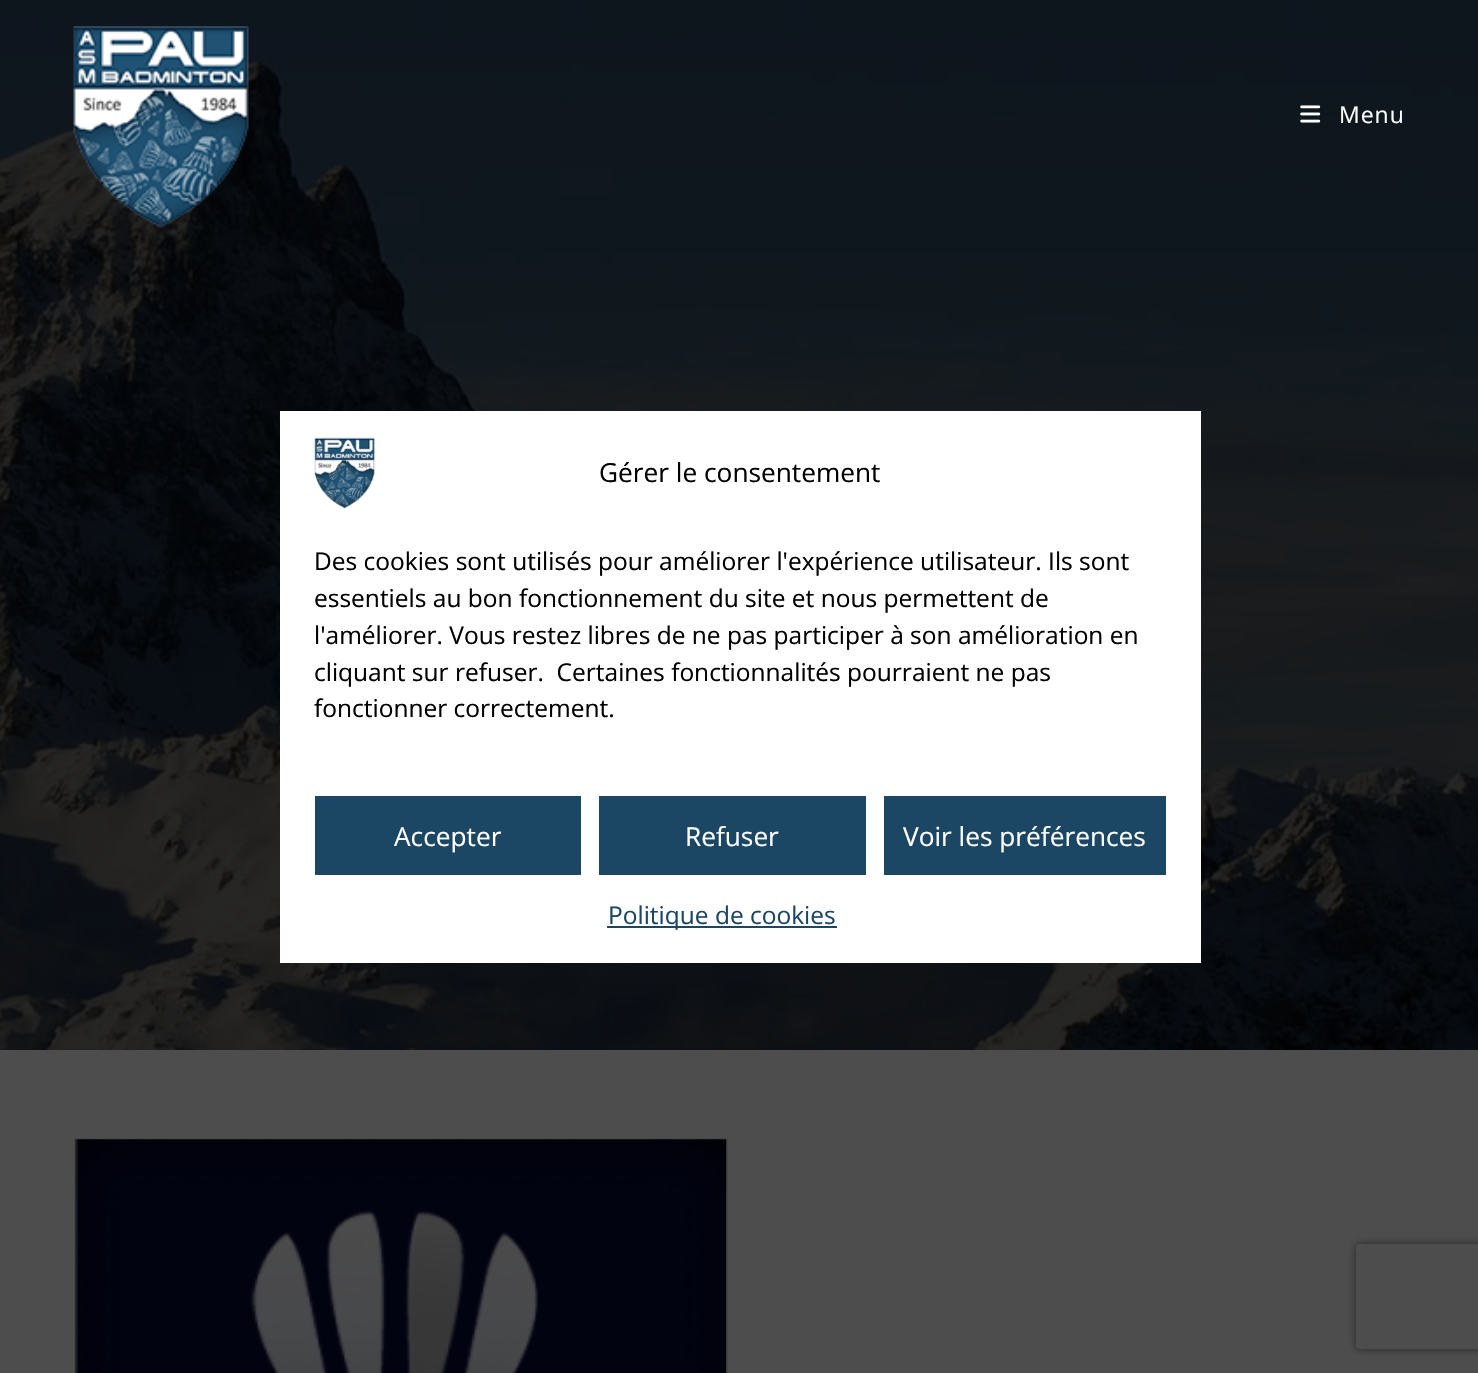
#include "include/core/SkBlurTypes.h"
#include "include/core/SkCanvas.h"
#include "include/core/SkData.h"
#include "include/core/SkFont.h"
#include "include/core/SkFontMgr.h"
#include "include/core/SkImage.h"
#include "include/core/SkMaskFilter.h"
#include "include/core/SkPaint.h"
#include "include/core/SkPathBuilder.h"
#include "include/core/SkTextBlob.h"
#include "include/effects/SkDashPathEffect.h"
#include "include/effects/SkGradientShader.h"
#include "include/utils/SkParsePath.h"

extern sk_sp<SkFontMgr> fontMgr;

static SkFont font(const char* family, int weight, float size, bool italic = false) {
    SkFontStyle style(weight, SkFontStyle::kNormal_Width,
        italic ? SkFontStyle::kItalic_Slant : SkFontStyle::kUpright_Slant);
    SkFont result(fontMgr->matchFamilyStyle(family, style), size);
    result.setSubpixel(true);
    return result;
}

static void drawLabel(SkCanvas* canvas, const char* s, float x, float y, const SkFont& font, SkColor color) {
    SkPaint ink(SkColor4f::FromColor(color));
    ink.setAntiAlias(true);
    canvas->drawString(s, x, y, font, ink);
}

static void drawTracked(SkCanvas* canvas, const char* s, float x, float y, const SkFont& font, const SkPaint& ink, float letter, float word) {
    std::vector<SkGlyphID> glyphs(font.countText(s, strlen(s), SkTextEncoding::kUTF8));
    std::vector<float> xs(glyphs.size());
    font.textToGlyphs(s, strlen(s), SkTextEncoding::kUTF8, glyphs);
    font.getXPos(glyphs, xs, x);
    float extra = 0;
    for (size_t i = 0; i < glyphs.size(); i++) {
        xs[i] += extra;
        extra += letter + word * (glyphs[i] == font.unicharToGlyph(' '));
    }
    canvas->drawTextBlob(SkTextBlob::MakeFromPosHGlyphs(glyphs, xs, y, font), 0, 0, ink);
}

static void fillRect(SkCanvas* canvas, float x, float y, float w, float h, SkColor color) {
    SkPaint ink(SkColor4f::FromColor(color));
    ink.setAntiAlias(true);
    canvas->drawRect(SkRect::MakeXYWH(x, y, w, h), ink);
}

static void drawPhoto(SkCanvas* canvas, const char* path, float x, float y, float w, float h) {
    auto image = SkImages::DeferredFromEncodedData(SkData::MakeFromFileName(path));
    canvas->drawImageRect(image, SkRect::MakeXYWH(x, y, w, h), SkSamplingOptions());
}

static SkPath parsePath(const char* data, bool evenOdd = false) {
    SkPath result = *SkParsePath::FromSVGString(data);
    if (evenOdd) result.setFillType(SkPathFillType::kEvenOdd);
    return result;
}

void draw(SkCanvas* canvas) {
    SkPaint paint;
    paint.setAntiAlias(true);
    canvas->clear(0xFF4D4D4D);
    drawPhoto(canvas, "assets/img1.png", 0, 0, 1478, 1050);
    paint.setStroke(true);
    paint.setStrokeWidth(2);
    paint.setColor(0xFF464646);
    canvas->drawRect(SkRect::MakeXYWH(75, 1139, 652, 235), paint);
    drawPhoto(canvas, "assets/img2.png", 75, 1139, 652, 234);
    drawPhoto(canvas, "assets/img3.png", 73, 26, 176, 202);
    drawPhoto(canvas, "assets/img4.png", 1300, 105, 21, 18);
    SkFont font1 = font("Open Sans", 400, 23);
    paint.setStroke(false);
    paint.setColor(0xFFFFFFFF);
    drawTracked(canvas, "Menu", 1339, 123, font1, paint, 1, 0);
    fillRect(canvas, 280, 411, 921, 552, 0xFFFFFFFF);
    drawPhoto(canvas, "assets/img5.png", 314, 437, 62, 72);
    SkFont font2 = font("Open Sans", 400, 26.25f);
    drawLabel(canvas, "Gérer le consentement", 599, 482, font2, 0xFF000000);
    SkFont font3 = font("Open Sans", 400, 24.5f);
    drawLabel(canvas, "Des cookies sont utilisés pour améliorer l'expérience utilisateur. Ils sont", 314, 570, font3, 0xFF000000);
    drawLabel(canvas, "essentiels au bon fonctionnement du site et nous permettent de", 314, 607, font3, 0xFF000000);
    drawLabel(canvas, "l'améliorer. Vous restez libres de ne pas participer à son amélioration en", 314, 644, font3, 0xFF000000);
    drawLabel(canvas, "cliquant sur refuser.  Certaines fonctionnalités pourraient ne pas", 314, 681, font3, 0xFF000000);
    drawLabel(canvas, "fonctionner correctement.", 314, 717, font3, 0xFF000000);
    fillRect(canvas, 315, 796, 266, 79, 0xFF1C4764);
    drawLabel(canvas, "Accepter", 394, 846, font2, 0xFFFFFFFF);
    fillRect(canvas, 599, 796, 267, 79, 0xFF1C4764);
    drawLabel(canvas, "Refuser", 685, 846, font2, 0xFFFFFFFF);
    fillRect(canvas, 884, 796, 282, 79, 0xFF1C4764);
    drawLabel(canvas, "Voir les préférences", 903, 846, font2, 0xFFFFFFFF);
    fillRect(canvas, 607, 926, 230, 2, 0xFF1C4764);
    drawLabel(canvas, "Politique de cookies", 608, 924, font3, 0xFF1C4764);
    canvas->save();
    canvas->clipPath(parsePath("M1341 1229H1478V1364H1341ZM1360 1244H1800C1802 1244 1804 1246 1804 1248V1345C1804 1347 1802 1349 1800 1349H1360C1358 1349 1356 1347 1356 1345V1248C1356 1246 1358 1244 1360 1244Z", true), true);
    paint.setColor(0xFF262626);
    paint.setMaskFilter(SkMaskFilter::MakeBlur(kNormal_SkBlurStyle, 4.5f));
    canvas->drawRoundRect(SkRect::MakeXYWH(1356, 1244, 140, 105), 4, 4, paint);
    paint.setMaskFilter(nullptr);
    canvas->restore();
}
